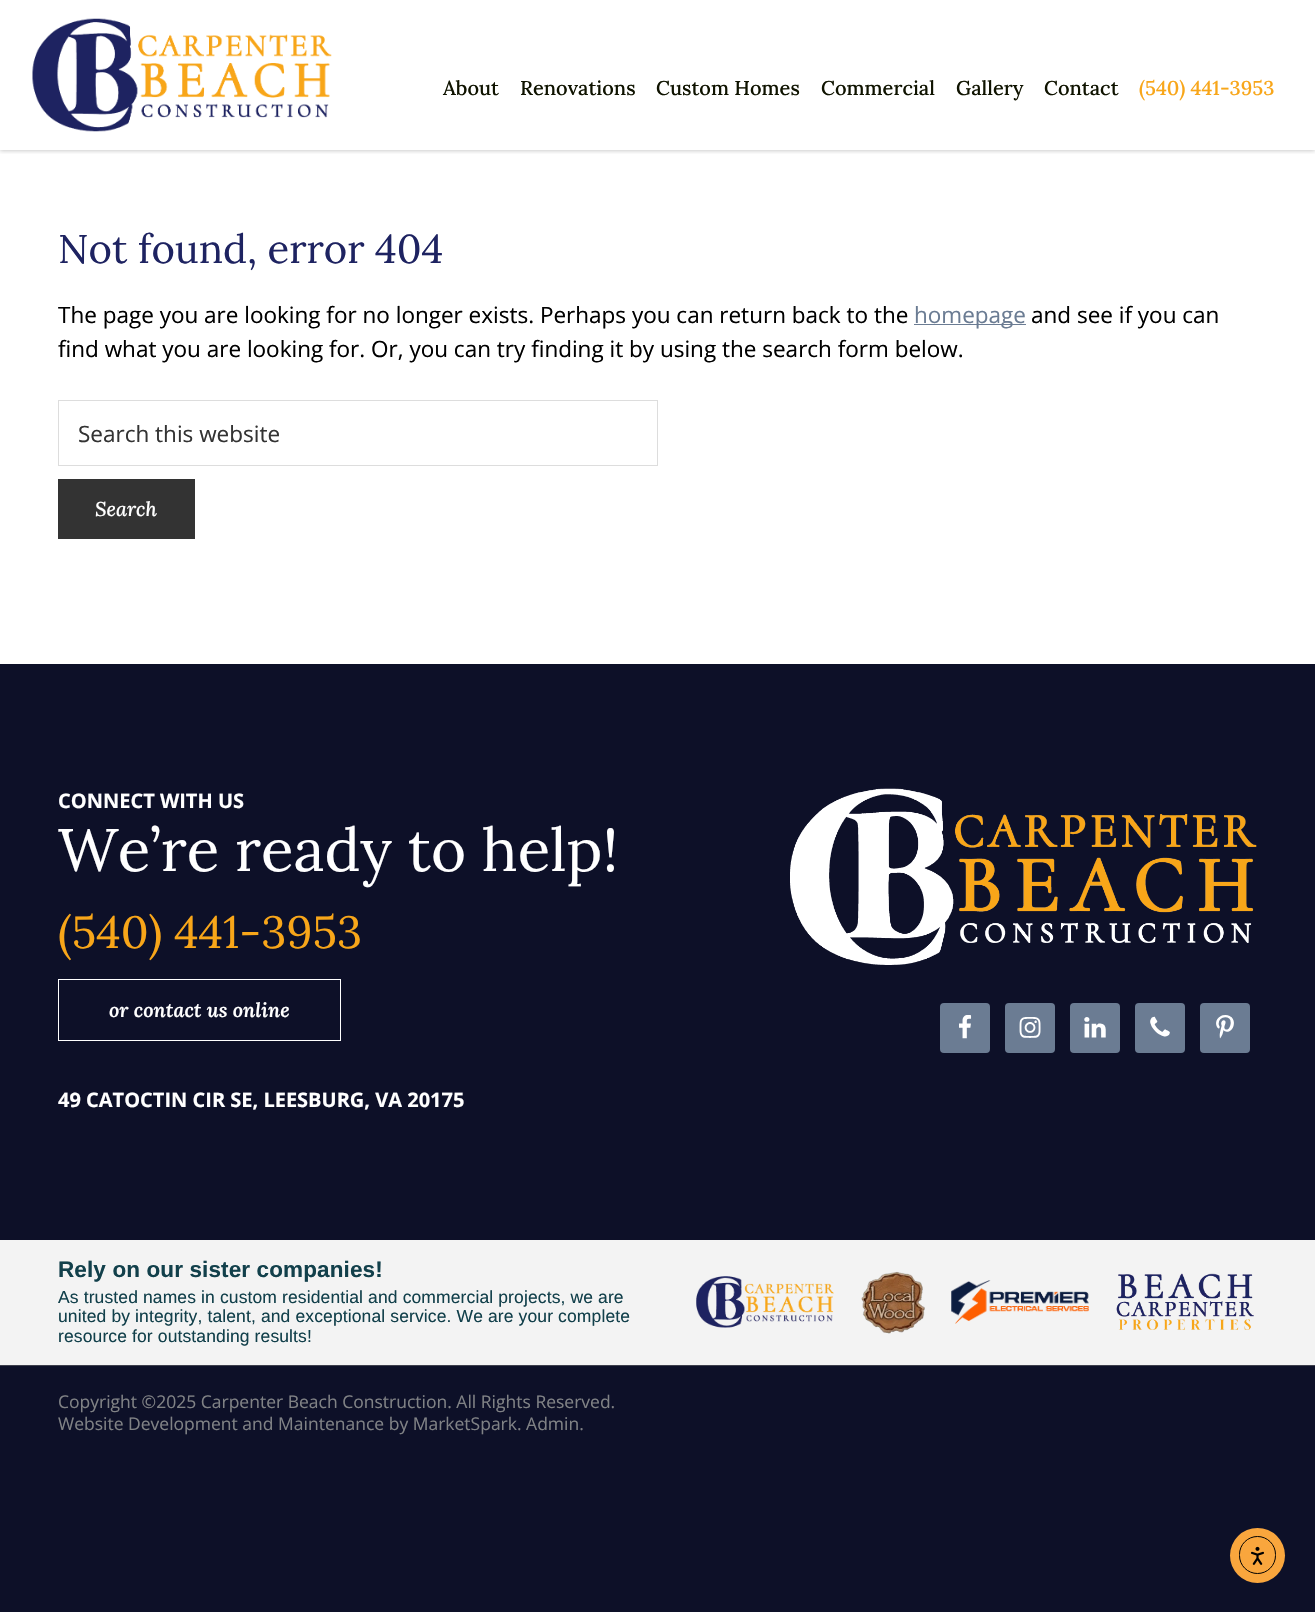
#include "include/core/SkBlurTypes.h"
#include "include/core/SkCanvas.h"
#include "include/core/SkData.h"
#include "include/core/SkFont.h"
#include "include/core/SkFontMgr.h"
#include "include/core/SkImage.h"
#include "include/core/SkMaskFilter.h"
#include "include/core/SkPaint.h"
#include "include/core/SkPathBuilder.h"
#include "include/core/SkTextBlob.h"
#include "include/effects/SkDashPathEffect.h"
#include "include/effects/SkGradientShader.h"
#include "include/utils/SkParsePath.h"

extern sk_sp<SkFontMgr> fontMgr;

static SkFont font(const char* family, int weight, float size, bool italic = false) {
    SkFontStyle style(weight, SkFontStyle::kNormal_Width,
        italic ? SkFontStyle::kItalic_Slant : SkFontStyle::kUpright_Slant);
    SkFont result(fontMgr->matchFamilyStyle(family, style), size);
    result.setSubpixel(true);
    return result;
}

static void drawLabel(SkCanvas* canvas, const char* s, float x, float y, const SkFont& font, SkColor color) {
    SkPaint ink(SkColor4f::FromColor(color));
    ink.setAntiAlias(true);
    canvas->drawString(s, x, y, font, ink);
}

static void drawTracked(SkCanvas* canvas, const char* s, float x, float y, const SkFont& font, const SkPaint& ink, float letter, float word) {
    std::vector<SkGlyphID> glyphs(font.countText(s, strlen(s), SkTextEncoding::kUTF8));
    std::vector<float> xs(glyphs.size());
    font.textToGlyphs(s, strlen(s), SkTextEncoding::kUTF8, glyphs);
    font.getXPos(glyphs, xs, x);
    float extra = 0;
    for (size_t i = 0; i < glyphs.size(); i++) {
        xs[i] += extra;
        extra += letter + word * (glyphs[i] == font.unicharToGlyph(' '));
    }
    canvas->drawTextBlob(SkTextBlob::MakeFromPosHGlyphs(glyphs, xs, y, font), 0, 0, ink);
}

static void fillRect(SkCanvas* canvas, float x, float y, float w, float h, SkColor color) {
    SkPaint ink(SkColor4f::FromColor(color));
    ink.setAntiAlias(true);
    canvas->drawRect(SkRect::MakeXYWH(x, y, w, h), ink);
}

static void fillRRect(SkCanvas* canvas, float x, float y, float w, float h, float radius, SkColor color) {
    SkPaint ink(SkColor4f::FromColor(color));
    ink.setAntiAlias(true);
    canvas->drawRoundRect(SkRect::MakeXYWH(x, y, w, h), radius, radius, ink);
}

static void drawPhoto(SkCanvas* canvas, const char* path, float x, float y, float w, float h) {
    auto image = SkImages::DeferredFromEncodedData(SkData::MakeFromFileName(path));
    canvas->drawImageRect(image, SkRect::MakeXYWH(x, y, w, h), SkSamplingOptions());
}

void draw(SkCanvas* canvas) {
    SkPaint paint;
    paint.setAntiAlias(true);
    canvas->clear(0xFF0D1028);
    fillRect(canvas, 0, 0, 1315, 664, 0xFFFFFFFF);
    canvas->save();
    canvas->clipRect(SkRect::MakeXYWH(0, 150, 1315, 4));
    paint.setColor(0x33000000);
    paint.setMaskFilter(SkMaskFilter::MakeBlur(kNormal_SkBlurStyle, 2));
    canvas->drawRect(SkRect::MakeXYWH(0, 1, 1315, 150), paint);
    paint.setMaskFilter(nullptr);
    canvas->restore();
    drawPhoto(canvas, "assets/img1.png", 32, 18, 300, 114);
    SkFont font1 = font("Lora", 500, 20);
    drawLabel(canvas, "About", 443, 95, font1, 0xFF0F1300);
    drawLabel(canvas, "Renovations", 520, 95, font1, 0xFF0F1300);
    drawLabel(canvas, "Custom Homes", 656, 95, font1, 0xFF0F1300);
    drawLabel(canvas, "Commercial", 821, 95, font1, 0xFF0F1300);
    drawLabel(canvas, "Gallery", 956, 95, font1, 0xFF0F1300);
    drawLabel(canvas, "Contact", 1044, 95, font1, 0xFF0F1300);
    drawLabel(canvas, "(540) 441-3953", 1139, 95, font1, 0xFFF8A619);
    SkFont font2 = font("Lora", 400, 40);
    drawLabel(canvas, "Not found, error 404", 58, 263, font2, 0xFF1E2361);
    SkFont font3 = font("Open Sans", 400, 22.5f);
    drawLabel(canvas, "The page you are looking for no longer exists. Perhaps you can return back to the", 58, 323, font3, 0xFF000000);
    fillRect(canvas, 914, 324, 112, 1, 0xFF6B7C93);
    drawLabel(canvas, "homepage", 914, 323, font3, 0xFF6B7C93);
    drawLabel(canvas, "and see if you can", 1031, 323, font3, 0xFF000000);
    drawLabel(canvas, "find what you are looking for. Or, you can try finding it by using the search form below.", 58, 357, font3, 0xFF000000);
    paint.setStroke(true);
    paint.setStrokeWidth(1);
    paint.setColor(0xFFDDDDDD);
    canvas->drawRect(SkRect::MakeXYWH(58.5f, 400.5f, 599, 65), paint);
    drawLabel(canvas, "Search this website", 78, 442, font3, 0xFF333333);
    fillRect(canvas, 58, 479, 137, 60, 0xFF333333);
    SkFont font4 = font("Lora", 500, 20, true);
    drawLabel(canvas, "Search", 95, 516, font4, 0xFFFFFFFF);
    SkFont font5 = font("Open Sans", 700, 20);
    drawLabel(canvas, "CONNECT WITH US", 58, 808, font5, 0xFFFFFFFF);
    SkFont font6 = font("Lora", 400, 60);
    drawLabel(canvas, "We’re ready to help!", 58, 871, font6, 0xFFFFFFFF);
    SkFont font7 = font("Lora", 400, 45);
    drawLabel(canvas, "(540) 441-3953", 58, 948, font7, 0xFFF8A619);
    paint.setColor(0xFFFFFFFF);
    canvas->drawRect(SkRect::MakeXYWH(58.5f, 979.5f, 282, 61), paint);
    SkFont font8 = font("Lora", 600, 20, true);
    drawLabel(canvas, "or contact us online", 109, 1017, font8, 0xFFFFFFFF);
    drawLabel(canvas, "49 CATOCTIN CIR SE, LEESBURG, VA 20175", 58, 1107, font5, 0xFFFFFFFF);
    drawPhoto(canvas, "assets/img2.png", 790, 788, 467, 177);
    fillRRect(canvas, 940, 1003, 50, 50, 4, 0xFF6B7C93);
    drawPhoto(canvas, "assets/img3.png", 959, 1015, 13, 24);
    fillRRect(canvas, 1005, 1003, 50, 50, 4, 0xFF6B7C93);
    drawPhoto(canvas, "assets/img4.png", 1019, 1017, 22, 21);
    fillRRect(canvas, 1070, 1003, 50, 50, 4, 0xFF6B7C93);
    drawPhoto(canvas, "assets/img5.png", 1084, 1017, 22, 21);
    fillRRect(canvas, 1135, 1003, 50, 50, 4, 0xFF6B7C93);
    drawPhoto(canvas, "assets/img6.png", 1150, 1016, 20, 21);
    fillRRect(canvas, 1200, 1003, 50, 50, 4, 0xFF6B7C93);
    drawPhoto(canvas, "assets/img7.png", 1216, 1015, 18, 24);
    fillRect(canvas, 0, 1240, 1315, 125, 0xFFF3F3F3);
    SkFont font9 = font("Liberation Sans", 700, 22.5f);
    paint.setStroke(false);
    paint.setColor(0xFF12404B);
    drawTracked(canvas, "Rely on our sister companies!", 58, 1277, font9, paint, 0.12f, 0);
    SkFont font10 = font("Liberation Sans", 400, 17.5f);
    drawTracked(canvas, "As trusted names in custom residential and commercial projects, we are", 58, 1303, font10, paint, 0.12f, 0);
    drawTracked(canvas, "united by integrity, talent, and exceptional service. We are your complete", 58, 1322, font10, paint, 0.12f, 0);
    drawTracked(canvas, "resource for outstanding results!", 58, 1342, font10, paint, 0.12f, 0);
    drawPhoto(canvas, "assets/img8.png", 696, 1276, 138, 52);
    drawPhoto(canvas, "assets/img9.png", 861, 1271, 64, 63);
    drawPhoto(canvas, "assets/img10.png", 951, 1280, 138, 44);
    drawPhoto(canvas, "assets/img11.png", 1116, 1273, 138, 57);
    fillRect(canvas, 0, 1365, 1315, 1, 0xFF3D3F4C);
    SkFont font11 = font("Open Sans", 400, 17.5f);
    drawLabel(canvas, "Copyright ©2025 Carpenter Beach Construction. All Rights Reserved.", 58, 1408, font11, 0xFF808285);
    drawLabel(canvas, "Website Development and Maintenance by MarketSpark. Admin.", 58, 1430, font11, 0xFF808285);
    paint.setColor(0xFFF9A63D);
    canvas->drawCircle(1257.5f, 1555.5f, 27.5f, paint);
    paint.setStroke(true);
    paint.setColor(0xFF000000);
    canvas->drawRoundRect(SkRect::MakeXYWH(1239.5f, 1536.5f, 36, 37), 18, 18, paint);
    drawPhoto(canvas, "assets/img12.png", 1251, 1546, 13, 19);
}
